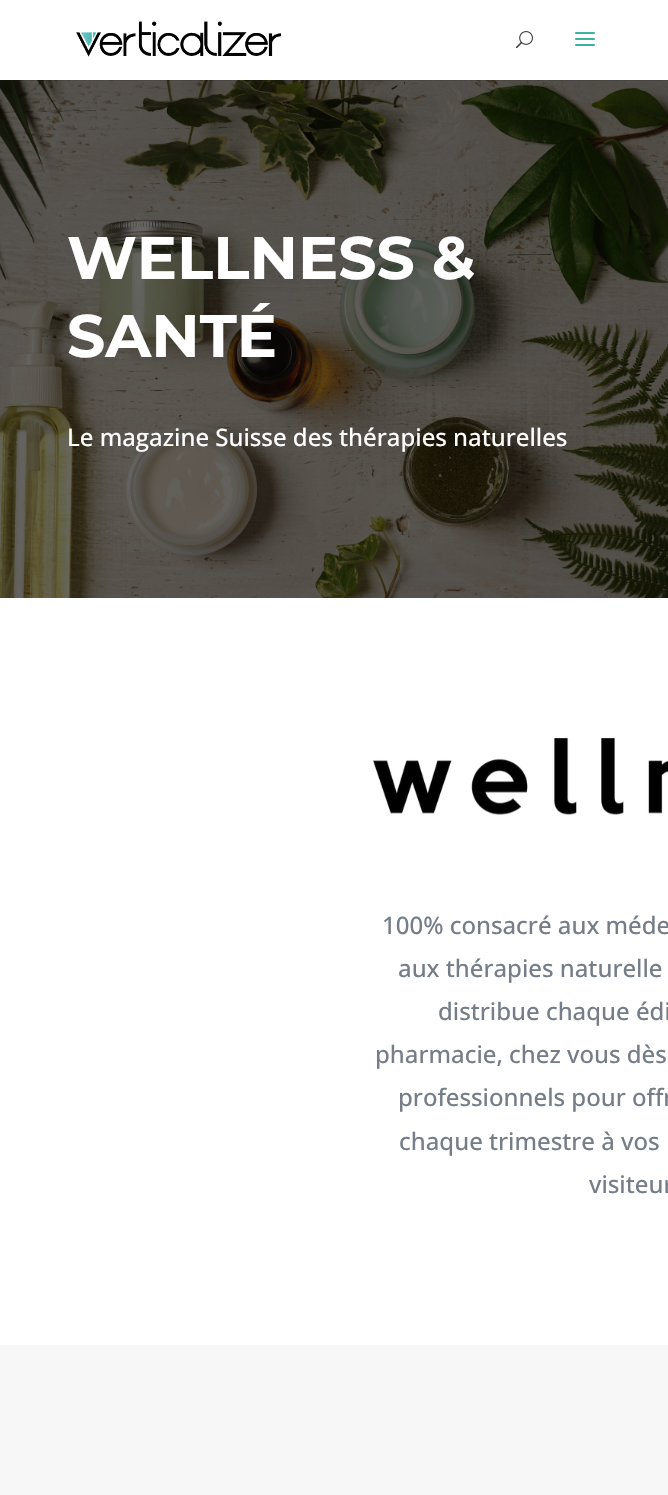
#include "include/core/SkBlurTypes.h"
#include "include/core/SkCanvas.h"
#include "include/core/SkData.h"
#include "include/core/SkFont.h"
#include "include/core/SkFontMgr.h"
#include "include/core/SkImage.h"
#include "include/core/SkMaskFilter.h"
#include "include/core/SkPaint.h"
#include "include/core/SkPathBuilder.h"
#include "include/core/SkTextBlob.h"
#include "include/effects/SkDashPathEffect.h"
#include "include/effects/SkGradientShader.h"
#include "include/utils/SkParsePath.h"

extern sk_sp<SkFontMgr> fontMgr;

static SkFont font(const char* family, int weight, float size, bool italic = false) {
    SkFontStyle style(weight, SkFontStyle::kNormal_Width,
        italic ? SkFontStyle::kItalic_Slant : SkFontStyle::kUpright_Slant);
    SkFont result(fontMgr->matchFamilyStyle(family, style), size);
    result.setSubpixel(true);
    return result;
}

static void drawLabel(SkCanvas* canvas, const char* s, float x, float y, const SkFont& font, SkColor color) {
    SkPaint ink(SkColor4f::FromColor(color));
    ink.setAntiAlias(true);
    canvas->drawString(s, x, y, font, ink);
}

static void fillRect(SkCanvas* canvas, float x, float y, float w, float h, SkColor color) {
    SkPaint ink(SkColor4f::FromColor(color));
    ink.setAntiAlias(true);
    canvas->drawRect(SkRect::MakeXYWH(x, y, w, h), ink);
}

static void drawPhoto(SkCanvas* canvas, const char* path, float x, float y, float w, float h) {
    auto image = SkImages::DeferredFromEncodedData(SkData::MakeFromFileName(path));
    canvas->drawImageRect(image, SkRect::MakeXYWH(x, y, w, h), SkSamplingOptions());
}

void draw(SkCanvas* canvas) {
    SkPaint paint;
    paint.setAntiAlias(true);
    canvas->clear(0xFFFFFFFF);
    drawPhoto(canvas, "assets/img4.png", 0, 80, 668, 518);
    fillRect(canvas, 19, 80, 649, 1, 0x1A000000);
    drawPhoto(canvas, "assets/img1.png", 76, 21, 205, 36);
    drawPhoto(canvas, "assets/img2.png", 516, 31, 17, 18);
    drawPhoto(canvas, "assets/img3.png", 575, 32, 20, 14);
    SkFont font1 = font("Montserrat", 700, 60);
    drawLabel(canvas, "WELLNESS &", 67, 279, font1, 0xFFFFFFFF);
    drawLabel(canvas, "SANTÉ", 67, 357, font1, 0xFFFFFFFF);
    SkFont font2 = font("Open Sans", 500, 24);
    drawLabel(canvas, "Le magazine Suisse des thérapies naturelles", 67, 446, font2, 0xFFFFFFFF);
    drawPhoto(canvas, "assets/img5.png", 373, 738, 295, 77);
    drawLabel(canvas, "100% consacré aux méde", 382, 934, font2, 0xFF747D88);
    drawLabel(canvas, "aux thérapies naturelle", 398, 977, font2, 0xFF747D88);
    drawLabel(canvas, "distribue chaque édi", 438, 1020, font2, 0xFF747D88);
    drawLabel(canvas, "pharmacie, chez vous dès", 375, 1063, font2, 0xFF747D88);
    drawLabel(canvas, "professionnels pour offr", 398, 1106, font2, 0xFF747D88);
    drawLabel(canvas, "chaque trimestre à vos", 399, 1150, font2, 0xFF747D88);
    drawLabel(canvas, "visiteur", 589, 1193, font2, 0xFF747D88);
    fillRect(canvas, 0, 1345, 668, 150, 0xFFF7F7F7);
}
